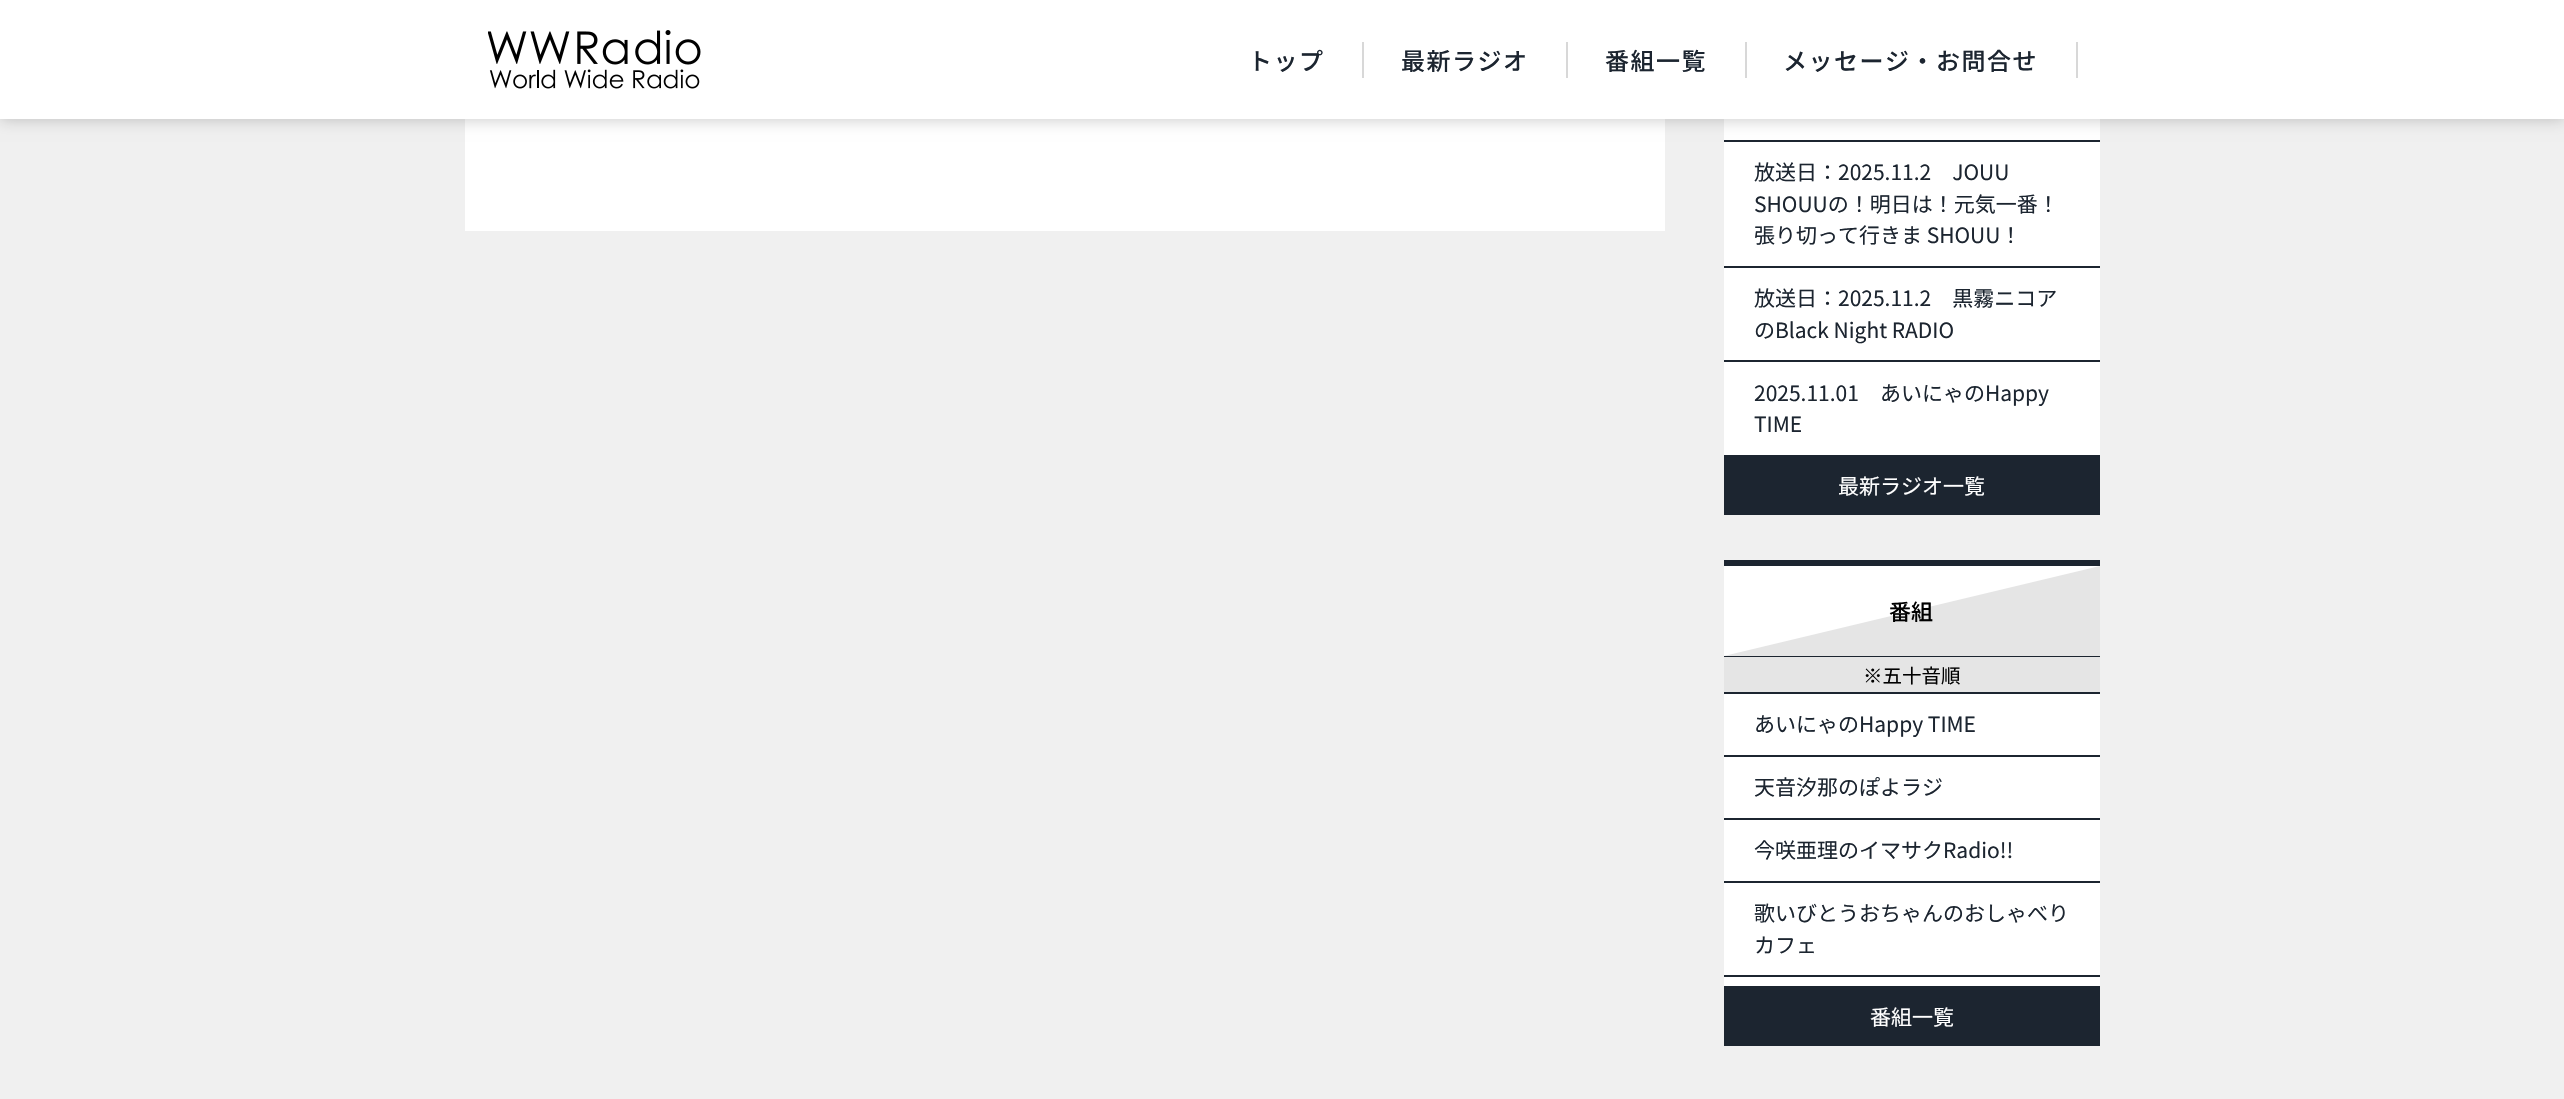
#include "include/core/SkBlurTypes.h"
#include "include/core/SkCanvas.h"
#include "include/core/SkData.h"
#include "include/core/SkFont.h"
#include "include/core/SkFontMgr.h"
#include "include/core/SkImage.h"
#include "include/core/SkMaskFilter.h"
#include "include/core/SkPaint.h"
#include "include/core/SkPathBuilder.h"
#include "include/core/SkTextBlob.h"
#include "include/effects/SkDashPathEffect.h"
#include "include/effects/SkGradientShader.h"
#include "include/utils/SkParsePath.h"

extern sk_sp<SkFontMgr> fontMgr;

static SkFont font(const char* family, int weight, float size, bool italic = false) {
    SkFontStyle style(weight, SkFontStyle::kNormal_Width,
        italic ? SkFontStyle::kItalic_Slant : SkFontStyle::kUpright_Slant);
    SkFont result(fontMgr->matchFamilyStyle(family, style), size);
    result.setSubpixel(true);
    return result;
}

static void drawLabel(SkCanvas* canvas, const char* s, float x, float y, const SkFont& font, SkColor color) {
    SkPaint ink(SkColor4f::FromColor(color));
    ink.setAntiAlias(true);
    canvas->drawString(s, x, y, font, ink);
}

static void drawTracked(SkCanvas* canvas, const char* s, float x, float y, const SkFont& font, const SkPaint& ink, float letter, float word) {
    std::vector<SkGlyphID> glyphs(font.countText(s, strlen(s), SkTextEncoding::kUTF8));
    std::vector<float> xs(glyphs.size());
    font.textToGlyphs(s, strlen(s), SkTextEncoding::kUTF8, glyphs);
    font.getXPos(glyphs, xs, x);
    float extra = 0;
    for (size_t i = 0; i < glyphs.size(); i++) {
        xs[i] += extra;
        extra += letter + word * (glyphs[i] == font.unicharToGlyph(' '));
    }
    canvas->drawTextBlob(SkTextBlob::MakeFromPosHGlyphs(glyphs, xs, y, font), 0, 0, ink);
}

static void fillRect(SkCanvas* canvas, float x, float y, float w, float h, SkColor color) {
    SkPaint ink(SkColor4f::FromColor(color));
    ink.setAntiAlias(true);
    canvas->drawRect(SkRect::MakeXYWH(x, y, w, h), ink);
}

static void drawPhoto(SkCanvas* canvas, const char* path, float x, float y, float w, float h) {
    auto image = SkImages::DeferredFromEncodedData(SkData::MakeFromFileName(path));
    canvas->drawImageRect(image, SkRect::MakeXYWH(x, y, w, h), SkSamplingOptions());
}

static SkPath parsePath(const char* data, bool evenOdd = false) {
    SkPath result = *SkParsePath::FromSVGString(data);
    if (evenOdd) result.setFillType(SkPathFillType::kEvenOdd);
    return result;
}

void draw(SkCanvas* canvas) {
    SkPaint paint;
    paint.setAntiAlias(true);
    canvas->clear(0xFFF0F0F0);
    fillRect(canvas, 465, 119, 1200, 112, 0xFFFFFFFF);
    fillRect(canvas, 1724, 119, 376, 336, 0xFFFFFFFF);
    fillRect(canvas, 1724, 140, 376, 2, 0xFF1C2530);
    paint.setColor(0x33000000);
    paint.setMaskFilter(SkMaskFilter::MakeBlur(kNormal_SkBlurStyle, 7.5f));
    canvas->drawRect(SkRect::MakeXYWH(0, 2, 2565, 118), paint);
    paint.setMaskFilter(nullptr);
    fillRect(canvas, 0, 0, 2564, 119, 0xFFFFFFFF);
    drawPhoto(canvas, "assets/img1.png", 488, 30, 213, 59);
    fillRect(canvas, 1362, 42, 2, 36, 0xFFD8D8D8);
    SkFont font1 = font("Noto Sans JP", 500, 24);
    paint.setColor(0xFF1C2530);
    drawTracked(canvas, "トップ", 1248, 70, font1, paint, 1.5f, 0);
    fillRect(canvas, 1566, 42, 2, 36, 0xFFD8D8D8);
    drawTracked(canvas, "最新ラジオ", 1401, 70, font1, paint, 1.5f, 0);
    fillRect(canvas, 1745, 42, 2, 36, 0xFFD8D8D8);
    drawTracked(canvas, "番組一覧", 1605, 70, font1, paint, 1.5f, 0);
    fillRect(canvas, 2076, 42, 2, 36, 0xFFD8D8D8);
    drawTracked(canvas, "メッセージ・お問合せ", 1783, 70, font1, paint, 1.5f, 0);
    SkFont font2 = font("Noto Sans JP", 400, 21);
    drawLabel(canvas, "放送日：2025.11.2　JOUU", 1754, 180, font2, 0xFF1C2530);
    drawLabel(canvas, "SHOUUの！明日は！元気一番！", 1754, 212, font2, 0xFF1C2530);
    drawLabel(canvas, "張り切って行きま SHOUU！", 1754, 243, font2, 0xFF1C2530);
    fillRect(canvas, 1724, 266, 376, 2, 0xFF1C2530);
    drawLabel(canvas, "放送日：2025.11.2　黒霧ニコア", 1754, 306, font2, 0xFF1C2530);
    drawLabel(canvas, "のBlack Night RADIO", 1754, 338, font2, 0xFF1C2530);
    fillRect(canvas, 1724, 360, 376, 2, 0xFF1C2530);
    drawLabel(canvas, "2025.11.01　あいにゃのHappy", 1754, 401, font2, 0xFF1C2530);
    drawLabel(canvas, "TIME", 1754, 432, font2, 0xFF1C2530);
    fillRect(canvas, 1724, 455, 376, 60, 0xFF1C2530);
    drawLabel(canvas, "最新ラジオ一覧", 1838, 494, font2, 0xFFFFFFFF);
    fillRect(canvas, 1724, 566, 376, 420, 0xFFFFFFFF);
    fillRect(canvas, 1724, 560, 376, 6, 0xFF1C2530);
    paint.setColor(0xFFE5E5E5);
    canvas->drawPath(parsePath("M2100 656H1724L2100 566Z"), paint);
    SkFont font3 = font("Noto Sans JP", 500, 22);
    drawLabel(canvas, "番組", 1889, 620, font3, 0xFF000000);
    fillRect(canvas, 1724, 656, 376, 1, 0xFF1C2530);
    fillRect(canvas, 1724, 657, 376, 35, 0xFFE5E5E5);
    SkFont font4 = font("Noto Sans JP", 400, 19.5f);
    drawLabel(canvas, "※五十音順", 1863, 683, font4, 0xFF000000);
    fillRect(canvas, 1724, 692, 376, 2, 0xFF1C2530);
    drawLabel(canvas, "あいにゃのHappy TIME", 1754, 732, font2, 0xFF1C2530);
    fillRect(canvas, 1724, 755, 376, 2, 0xFF1C2530);
    drawLabel(canvas, "天音汐那のぽよラジ", 1754, 795, font2, 0xFF1C2530);
    fillRect(canvas, 1724, 818, 376, 2, 0xFF1C2530);
    drawLabel(canvas, "今咲亜理のイマサクRadio!!", 1754, 858, font2, 0xFF1C2530);
    fillRect(canvas, 1724, 881, 376, 2, 0xFF1C2530);
    drawLabel(canvas, "歌いびとうおちゃんのおしゃべり", 1754, 921, font2, 0xFF1C2530);
    drawLabel(canvas, "カフェ", 1754, 953, font2, 0xFF1C2530);
    fillRect(canvas, 1724, 975, 376, 2, 0xFF1C2530);
    fillRect(canvas, 1724, 986, 376, 60, 0xFF1C2530);
    drawLabel(canvas, "番組一覧", 1870, 1025, font2, 0xFFFFFFFF);
}
